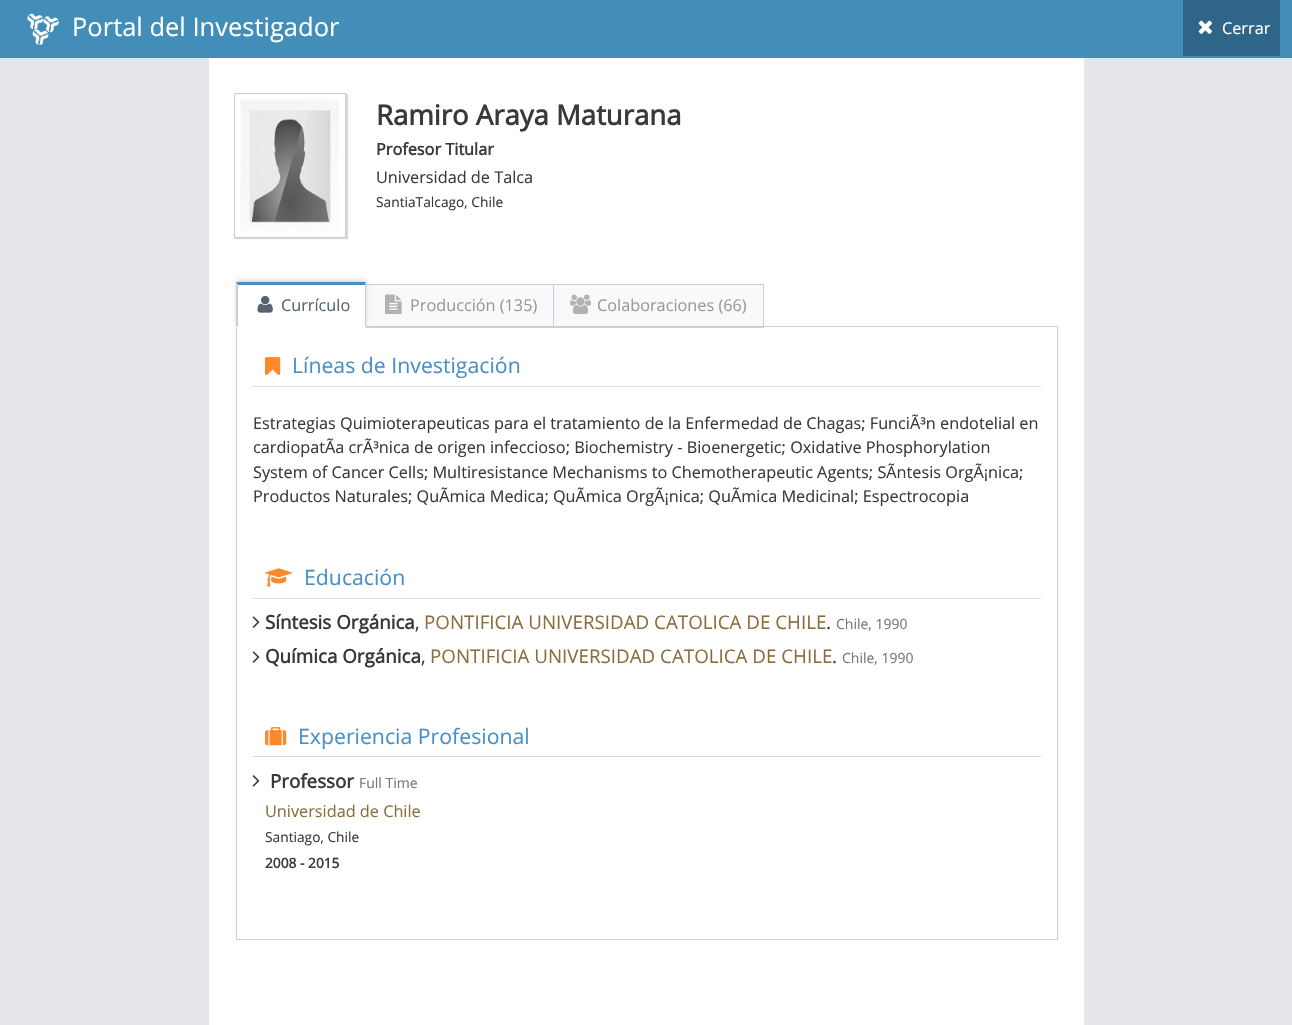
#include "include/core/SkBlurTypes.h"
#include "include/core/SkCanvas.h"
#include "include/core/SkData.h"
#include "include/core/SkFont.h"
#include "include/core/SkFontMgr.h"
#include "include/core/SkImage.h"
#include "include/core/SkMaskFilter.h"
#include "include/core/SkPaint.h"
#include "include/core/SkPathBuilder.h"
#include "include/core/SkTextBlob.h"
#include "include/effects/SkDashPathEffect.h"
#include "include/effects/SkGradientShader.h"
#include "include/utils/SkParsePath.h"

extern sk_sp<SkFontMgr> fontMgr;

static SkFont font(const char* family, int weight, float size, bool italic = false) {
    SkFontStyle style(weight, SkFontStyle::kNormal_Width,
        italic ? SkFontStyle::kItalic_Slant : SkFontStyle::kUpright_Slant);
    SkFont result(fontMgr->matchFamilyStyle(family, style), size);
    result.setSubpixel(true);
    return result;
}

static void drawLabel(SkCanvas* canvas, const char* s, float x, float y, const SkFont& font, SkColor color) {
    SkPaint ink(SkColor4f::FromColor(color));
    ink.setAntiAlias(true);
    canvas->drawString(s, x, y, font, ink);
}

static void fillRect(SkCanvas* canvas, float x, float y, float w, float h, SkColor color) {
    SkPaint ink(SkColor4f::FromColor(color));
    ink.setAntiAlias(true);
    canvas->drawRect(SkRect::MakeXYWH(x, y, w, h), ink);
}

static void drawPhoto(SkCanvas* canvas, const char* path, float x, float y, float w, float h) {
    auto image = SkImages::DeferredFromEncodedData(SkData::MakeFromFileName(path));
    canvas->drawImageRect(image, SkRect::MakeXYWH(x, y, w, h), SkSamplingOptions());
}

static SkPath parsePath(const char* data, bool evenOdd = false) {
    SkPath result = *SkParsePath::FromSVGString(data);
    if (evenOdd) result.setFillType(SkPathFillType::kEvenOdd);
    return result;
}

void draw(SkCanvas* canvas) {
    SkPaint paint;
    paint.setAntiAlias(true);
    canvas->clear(0xFFE4E6E9);
    fillRect(canvas, 0, 0, 1292, 58, 0xFF438EB9);
    drawPhoto(canvas, "assets/img1.png", 27, 13, 32, 32);
    SkFont font1 = font("Open Sans", 400, 25.5f);
    drawLabel(canvas, "Portal del Investigador", 72, 36, font1, 0xFFFFFFFF);
    fillRect(canvas, 1183, 0, 97, 56, 0xFF2E6589);
    drawPhoto(canvas, "assets/img2.png", 1198, 20, 14, 14);
    SkFont font2 = font("Open Sans", 400, 16.25f);
    drawLabel(canvas, "Cerrar", 1222, 34, font2, 0xFFFFFFFF);
    fillRect(canvas, 209, 58, 875, 967, 0xFFFFFFFF);
    paint.setColor(0x26000000);
    paint.setMaskFilter(SkMaskFilter::MakeBlur(kNormal_SkBlurStyle, 0.5f));
    canvas->drawRect(SkRect::MakeXYWH(235, 94, 113, 145), paint);
    paint.setMaskFilter(nullptr);
    paint.setColor(0xFFFFFFFF);
    canvas->drawRect(SkRect::MakeXYWH(234.5f, 93.5f, 111, 144), paint);
    paint.setStroke(true);
    paint.setStrokeWidth(1);
    paint.setColor(0xFFCCCCCC);
    canvas->drawRect(SkRect::MakeXYWH(234.5f, 93.5f, 111, 144), paint);
    drawPhoto(canvas, "assets/img3.png", 240, 99, 99, 132);
    SkFont font3 = font("Open Sans", 700, 27.5f);
    drawLabel(canvas, "Ramiro Araya Maturana", 376, 125, font3, 0xFF393939);
    SkFont font4 = font("Open Sans", 700, 16.25f);
    drawLabel(canvas, "Profesor Titular", 376, 155, font4, 0xFF393939);
    drawLabel(canvas, "Universidad de Talca", 376, 183, font2, 0xFF393939);
    SkFont font5 = font("Open Sans", 400, 13.75f);
    drawLabel(canvas, "SantiaTalcago, Chile", 376, 207, font5, 0xFF393939);
    fillRect(canvas, 366, 285, 187, 41, 0xFFF9F9F9);
    paint.setColor(0xFFC5D0DC);
    canvas->drawRect(SkRect::MakeXYWH(365.5f, 284.5f, 188, 43), paint);
    fillRect(canvas, 554, 285, 209, 41, 0xFFF9F9F9);
    canvas->drawRect(SkRect::MakeXYWH(553.5f, 284.5f, 210, 43), paint);
    canvas->drawRect(SkRect::MakeXYWH(236.5f, 326.5f, 821, 613), paint);
    paint.setStroke(false);
    paint.setColor(0x26000000);
    paint.setMaskFilter(SkMaskFilter::MakeBlur(kNormal_SkBlurStyle, 2));
    canvas->drawRect(SkRect::MakeXYWH(236, 280, 130, 45), paint);
    paint.setMaskFilter(nullptr);
    fillRect(canvas, 236, 283, 130, 45, 0xFFFFFFFF);
    paint.setColor(0xFF4C8FBD);
    canvas->drawPath(parsePath("M236 282H366L365 285H238Z"), paint);
    paint.setColor(0xFFC5D0DC);
    canvas->drawPath(parsePath("M366 282V328L365 326V285Z"), paint);
    canvas->drawPath(parsePath("M236 328V282L238 285V326Z"), paint);
    drawPhoto(canvas, "assets/img4.png", 257, 295, 16, 18);
    drawLabel(canvas, "Currículo", 281, 311, font2, 0xFF576373);
    drawPhoto(canvas, "assets/img5.png", 385, 294, 17, 21);
    drawLabel(canvas, "Producción (135)", 410, 311, font2, 0xFF999999);
    drawPhoto(canvas, "assets/img6.png", 570, 294, 21, 21);
    drawLabel(canvas, "Colaboraciones (66)", 597, 311, font2, 0xFF999999);
    fillRect(canvas, 253, 386, 788, 1, 0xFFDDDDDD);
    drawPhoto(canvas, "assets/img7.png", 265, 357, 16, 18);
    SkFont font6 = font("Open Sans", 400, 21.25f);
    drawLabel(canvas, "Líneas de Investigación", 292, 373, font6, 0xFF478FCA);
    drawLabel(canvas, "Estrategias Quimioterapeuticas para el tratamiento de la Enfermedad de Chagas; FunciÃ³n endotelial en", 253, 429, font2, 0xFF393939);
    drawLabel(canvas, "cardiopatÃa crÃ³nica de origen infeccioso; Biochemistry - Bioenergetic; Oxidative Phosphorylation", 253, 453, font2, 0xFF393939);
    drawLabel(canvas, "System of Cancer Cells; Multiresistance Mechanisms to Chemotherapeutic Agents; SÃntesis OrgÃ¡nica;", 253, 478, font2, 0xFF393939);
    drawLabel(canvas, "Productos Naturales; QuÃmica Medica; QuÃmica OrgÃ¡nica; QuÃmica Medicinal; Espectrocopia", 253, 502, font2, 0xFF393939);
    fillRect(canvas, 253, 598, 788, 1, 0xFFDDDDDD);
    drawPhoto(canvas, "assets/img8.png", 265, 568, 28, 19);
    drawLabel(canvas, "Educación", 304, 585, font6, 0xFF478FCA);
    drawPhoto(canvas, "assets/img9.png", 252, 616, 8, 12);
    SkFont font7 = font("Open Sans", 700, 18.75f);
    drawLabel(canvas, "Síntesis Orgánica", 265, 629, font7, 0xFF393939);
    SkFont font8 = font("Open Sans", 400, 18.75f);
    drawLabel(canvas, ",", 415, 629, font8, 0xFF393939);
    drawLabel(canvas, "PONTIFICIA UNIVERSIDAD CATOLICA DE CHILE", 424, 629, font8, 0xFF8A6D3B);
    drawLabel(canvas, ".", 826, 629, font8, 0xFF393939);
    SkFont font9 = font("Open Sans", 400, 14);
    drawLabel(canvas, "Chile, 1990", 836, 629, font9, 0xFF777777);
    drawPhoto(canvas, "assets/img9.png", 252, 651, 8, 12);
    drawLabel(canvas, "Química Orgánica", 265, 663, font7, 0xFF393939);
    drawLabel(canvas, ",", 421, 663, font8, 0xFF393939);
    drawLabel(canvas, "PONTIFICIA UNIVERSIDAD CATOLICA DE CHILE", 430, 663, font8, 0xFF8A6D3B);
    drawLabel(canvas, ".", 832, 663, font8, 0xFF393939);
    drawLabel(canvas, "Chile, 1990", 842, 663, font9, 0xFF777777);
    fillRect(canvas, 253, 756, 788, 1, 0xFFDDDDDD);
    drawPhoto(canvas, "assets/img10.png", 265, 727, 22, 19);
    drawLabel(canvas, "Experiencia Profesional", 298, 744, font6, 0xFF478FCA);
    drawPhoto(canvas, "assets/img11.png", 252, 775, 8, 12);
    drawLabel(canvas, "Professor", 270, 788, font7, 0xFF393939);
    drawLabel(canvas, "Full Time", 359, 788, font9, 0xFF777777);
    drawLabel(canvas, "Universidad de Chile", 265, 817, font2, 0xFF8A6D3B);
    drawLabel(canvas, "Santiago, Chile", 265, 842, font5, 0xFF393939);
    SkFont font10 = font("Open Sans", 700, 13.75f);
    drawLabel(canvas, "2008 - 2015", 265, 868, font10, 0xFF393939);
}
